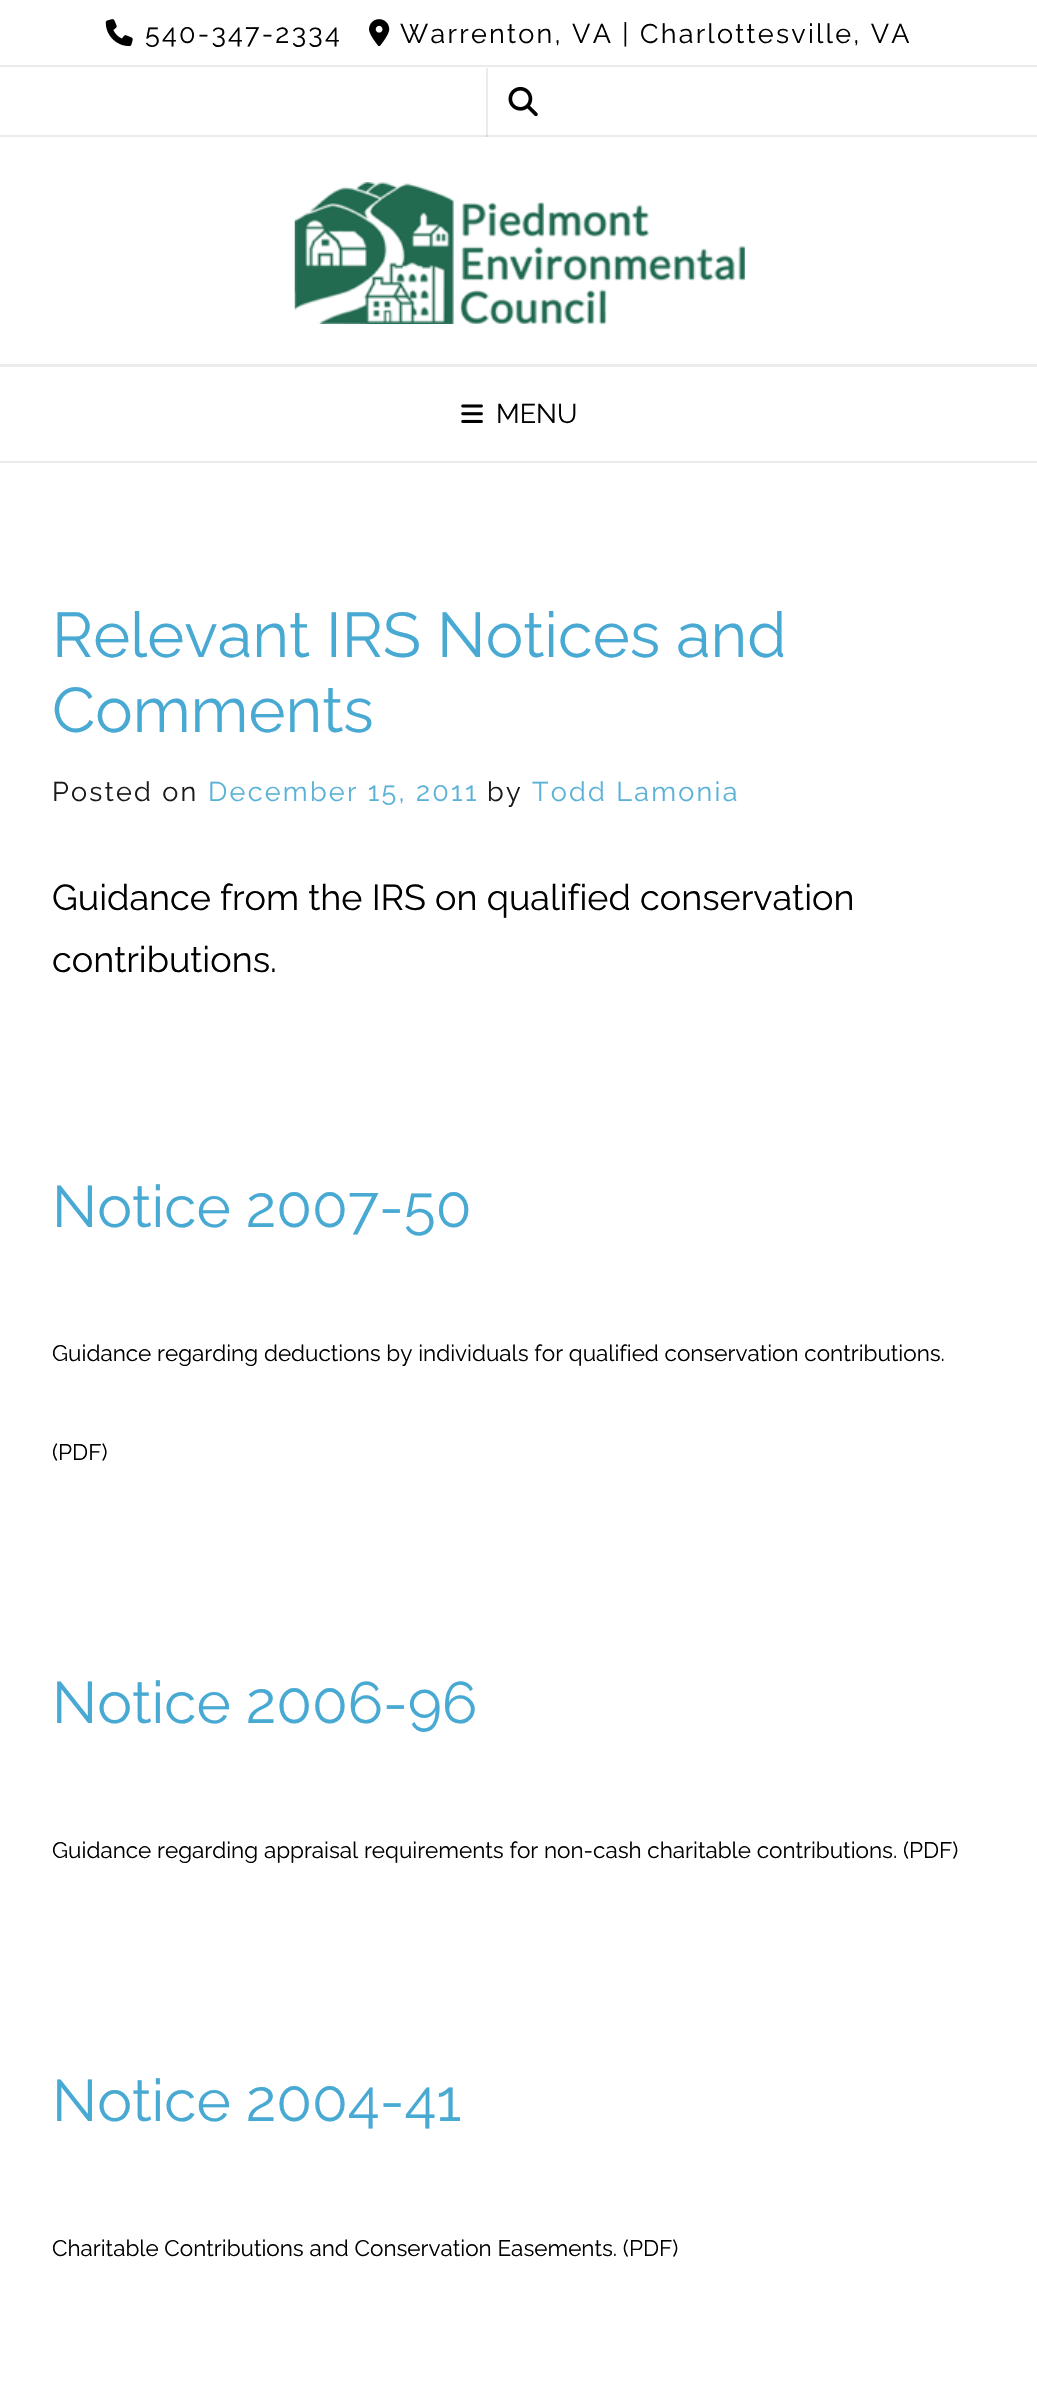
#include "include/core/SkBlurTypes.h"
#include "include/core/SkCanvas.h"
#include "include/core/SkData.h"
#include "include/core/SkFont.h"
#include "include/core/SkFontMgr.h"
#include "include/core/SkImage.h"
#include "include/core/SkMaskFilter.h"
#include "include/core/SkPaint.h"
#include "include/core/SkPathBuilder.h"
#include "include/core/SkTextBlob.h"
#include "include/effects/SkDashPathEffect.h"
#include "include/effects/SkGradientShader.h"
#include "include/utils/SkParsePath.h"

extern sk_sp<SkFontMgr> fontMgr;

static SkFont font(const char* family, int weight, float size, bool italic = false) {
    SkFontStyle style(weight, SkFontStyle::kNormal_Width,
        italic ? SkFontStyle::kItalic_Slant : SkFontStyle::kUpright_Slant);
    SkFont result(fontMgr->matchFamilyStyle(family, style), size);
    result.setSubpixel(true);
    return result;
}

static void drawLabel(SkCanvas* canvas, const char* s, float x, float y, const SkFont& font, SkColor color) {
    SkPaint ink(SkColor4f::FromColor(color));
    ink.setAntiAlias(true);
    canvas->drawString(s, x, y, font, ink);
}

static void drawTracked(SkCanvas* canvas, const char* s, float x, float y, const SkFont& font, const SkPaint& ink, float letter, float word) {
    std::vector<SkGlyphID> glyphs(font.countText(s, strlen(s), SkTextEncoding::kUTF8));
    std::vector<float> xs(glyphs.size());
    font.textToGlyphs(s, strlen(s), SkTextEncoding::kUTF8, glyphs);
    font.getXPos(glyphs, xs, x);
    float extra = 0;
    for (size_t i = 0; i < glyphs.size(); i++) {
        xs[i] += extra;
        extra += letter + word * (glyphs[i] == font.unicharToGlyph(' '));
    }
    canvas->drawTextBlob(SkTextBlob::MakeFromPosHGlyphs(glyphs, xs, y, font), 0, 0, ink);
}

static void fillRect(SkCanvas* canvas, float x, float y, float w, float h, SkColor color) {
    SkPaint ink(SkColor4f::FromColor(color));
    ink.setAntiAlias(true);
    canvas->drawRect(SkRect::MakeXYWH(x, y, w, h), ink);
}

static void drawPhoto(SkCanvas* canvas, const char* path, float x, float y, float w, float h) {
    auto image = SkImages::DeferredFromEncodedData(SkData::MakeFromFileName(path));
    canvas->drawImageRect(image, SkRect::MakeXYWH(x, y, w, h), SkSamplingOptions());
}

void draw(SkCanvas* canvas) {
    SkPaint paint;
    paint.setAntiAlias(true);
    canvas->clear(0xFFFFFFFF);
    fillRect(canvas, 0, 65, 1037, 2, 0xFFEBEBEB);
    drawPhoto(canvas, "assets/img1.png", 105, 19, 28, 28);
    SkFont font1 = font("Raleway", 400, 27);
    paint.setColor(0xFF000000);
    drawTracked(canvas, "540-347-2334", 145, 43, font1, paint, 2.25f, 0);
    drawPhoto(canvas, "assets/img2.png", 369, 19, 21, 27);
    drawTracked(canvas, "Warrenton, VA | Charlottesville, VA", 400, 43, font1, paint, 2.25f, 0);
    fillRect(canvas, 0, 135, 1037, 2, 0xFFEBEBEB);
    fillRect(canvas, 486, 68, 2, 69, 0x14000000);
    drawPhoto(canvas, "assets/img3.png", 508, 86, 30, 31);
    fillRect(canvas, 0, 461, 1037, 2, 0xFFEBEBEB);
    fillRect(canvas, 0, 364, 1037, 3, 0xFFEBEBEB);
    drawPhoto(canvas, "assets/img4.png", 294, 182, 451, 142);
    drawPhoto(canvas, "assets/img5.png", 461, 404, 22, 19);
    drawLabel(canvas, "MENU", 496, 423, font1, 0xFF000000);
    SkFont font2 = font("Raleway", 400, 63);
    drawLabel(canvas, "Relevant IRS Notices and", 52, 657, font2, 0xFF48A9D3);
    drawLabel(canvas, "Comments", 52, 732, font2, 0xFF48A9D3);
    paint.setColor(0xFF1A1A1A);
    drawTracked(canvas, "Posted on", 52, 801, font1, paint, 2.25f, 0);
    paint.setColor(0xFF5AB2D7);
    drawTracked(canvas, "December 15, 2011", 208, 801, font1, paint, 2.25f, 0);
    paint.setColor(0xFF1A1A1A);
    drawTracked(canvas, "by", 487, 801, font1, paint, 2.25f, 0);
    paint.setColor(0xFF5AB2D7);
    drawTracked(canvas, "Todd Lamonia", 532, 801, font1, paint, 2.25f, 0);
    SkFont font3 = font("Raleway", 400, 36);
    drawLabel(canvas, "Guidance from the IRS on qualified conservation", 52, 910, font3, 0xFF000000);
    drawLabel(canvas, "contributions.", 52, 972, font3, 0xFF000000);
    SkFont font4 = font("Raleway", 400, 58.5f);
    drawLabel(canvas, "Notice 2007-50", 52, 1227, font4, 0xFF48A9D3);
    SkFont font5 = font("Raleway", 400, 22.5f);
    drawLabel(canvas, "Guidance regarding deductions by individuals for qualified conservation contributions.", 52, 1361, font5, 0xFF000000);
    drawLabel(canvas, "(PDF)", 52, 1460, font5, 0xFF000000);
    drawLabel(canvas, "Notice 2006-96", 52, 1723, font4, 0xFF48A9D3);
    drawLabel(canvas, "Guidance regarding appraisal requirements for non-cash charitable contributions. (PDF)", 52, 1858, font5, 0xFF000000);
    drawLabel(canvas, "Notice 2004-41", 52, 2121, font4, 0xFF48A9D3);
    drawLabel(canvas, "Charitable Contributions and Conservation Easements. (PDF)", 52, 2256, font5, 0xFF000000);
}
